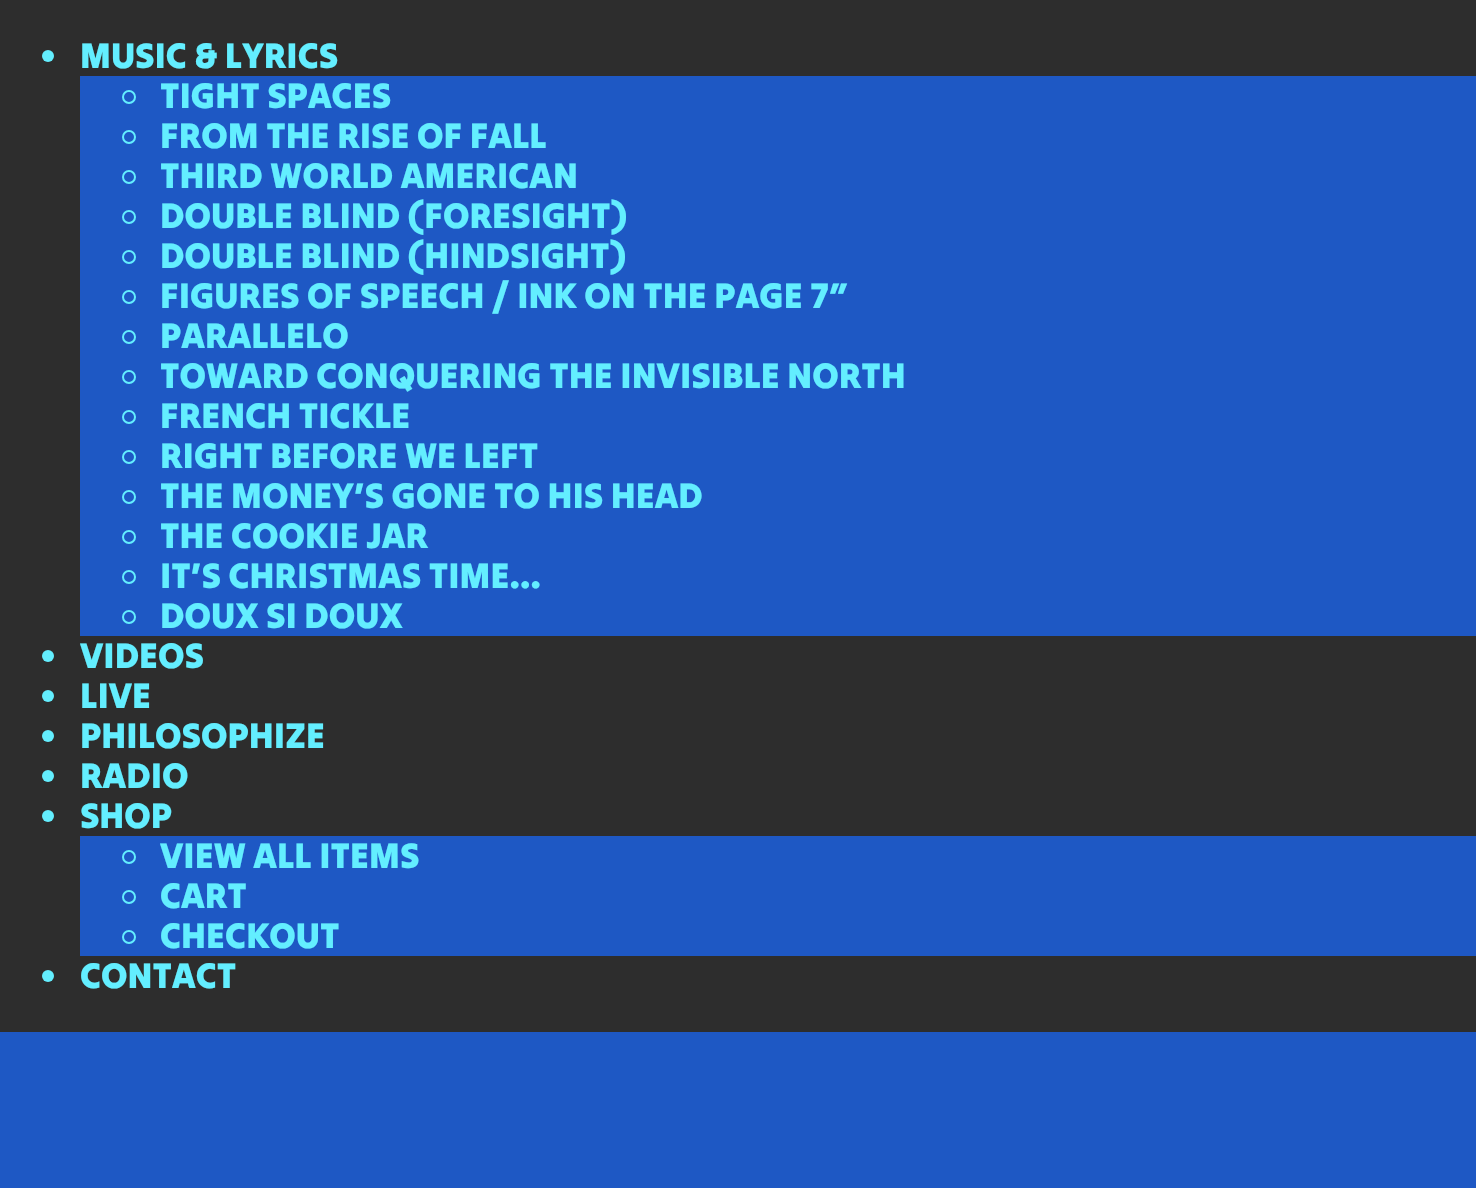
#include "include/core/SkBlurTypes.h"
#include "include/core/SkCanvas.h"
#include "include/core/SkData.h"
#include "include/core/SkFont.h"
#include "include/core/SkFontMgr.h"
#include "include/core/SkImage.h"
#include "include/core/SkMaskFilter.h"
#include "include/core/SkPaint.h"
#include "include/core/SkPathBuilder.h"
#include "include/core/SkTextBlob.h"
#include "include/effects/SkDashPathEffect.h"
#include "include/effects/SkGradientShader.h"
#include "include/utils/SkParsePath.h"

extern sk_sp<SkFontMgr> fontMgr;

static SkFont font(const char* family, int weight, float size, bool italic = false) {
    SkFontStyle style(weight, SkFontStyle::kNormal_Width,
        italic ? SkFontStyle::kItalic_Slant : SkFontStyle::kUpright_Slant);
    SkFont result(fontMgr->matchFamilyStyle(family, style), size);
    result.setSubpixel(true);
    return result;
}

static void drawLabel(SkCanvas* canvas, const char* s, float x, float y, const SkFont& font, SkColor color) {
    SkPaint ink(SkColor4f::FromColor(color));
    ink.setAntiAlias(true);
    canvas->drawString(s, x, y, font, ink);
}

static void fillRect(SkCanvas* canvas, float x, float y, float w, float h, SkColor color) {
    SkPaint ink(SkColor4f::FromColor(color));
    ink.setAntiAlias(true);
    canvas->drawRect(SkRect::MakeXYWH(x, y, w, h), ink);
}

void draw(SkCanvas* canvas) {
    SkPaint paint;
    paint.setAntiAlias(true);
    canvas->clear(0xFF2D2D2D);
    paint.setColor(0xFF63EEFF);
    canvas->drawCircle(48, 56, 6, paint);
    SkFont font1 = font("Tilt Warp", 400, 36);
    drawLabel(canvas, "MUSIC & LYRICS", 80, 68, font1, 0xFF63EEFF);
    fillRect(canvas, 80, 76, 1396, 560, 0xFF1E58C4);
    paint.setStroke(true);
    paint.setStrokeWidth(2);
    canvas->drawCircle(129, 97, 6, paint);
    drawLabel(canvas, "TIGHT SPACES", 160, 108, font1, 0xFF63EEFF);
    canvas->drawCircle(129, 137, 6, paint);
    drawLabel(canvas, "FROM THE RISE OF FALL", 160, 148, font1, 0xFF63EEFF);
    canvas->drawCircle(129, 177, 6, paint);
    drawLabel(canvas, "THIRD WORLD AMERICAN", 160, 188, font1, 0xFF63EEFF);
    canvas->drawCircle(129, 217, 6, paint);
    drawLabel(canvas, "DOUBLE BLIND (FORESIGHT)", 160, 228, font1, 0xFF63EEFF);
    canvas->drawCircle(129, 257, 6, paint);
    drawLabel(canvas, "DOUBLE BLIND (HINDSIGHT)", 160, 268, font1, 0xFF63EEFF);
    canvas->drawCircle(129, 297, 6, paint);
    drawLabel(canvas, "FIGURES OF SPEECH / INK ON THE PAGE 7″", 160, 308, font1, 0xFF63EEFF);
    canvas->drawCircle(129, 337, 6, paint);
    drawLabel(canvas, "PARALLELO", 160, 348, font1, 0xFF63EEFF);
    canvas->drawCircle(129, 377, 6, paint);
    drawLabel(canvas, "TOWARD CONQUERING THE INVISIBLE NORTH", 160, 388, font1, 0xFF63EEFF);
    canvas->drawCircle(129, 417, 6, paint);
    drawLabel(canvas, "FRENCH TICKLE", 160, 428, font1, 0xFF63EEFF);
    canvas->drawCircle(129, 457, 6, paint);
    drawLabel(canvas, "RIGHT BEFORE WE LEFT", 160, 468, font1, 0xFF63EEFF);
    canvas->drawCircle(129, 497, 6, paint);
    drawLabel(canvas, "THE MONEY’S GONE TO HIS HEAD", 160, 508, font1, 0xFF63EEFF);
    canvas->drawCircle(129, 537, 6, paint);
    drawLabel(canvas, "THE COOKIE JAR", 160, 548, font1, 0xFF63EEFF);
    canvas->drawCircle(129, 577, 6, paint);
    drawLabel(canvas, "IT’S CHRISTMAS TIME…", 160, 588, font1, 0xFF63EEFF);
    canvas->drawCircle(129, 617, 6, paint);
    drawLabel(canvas, "DOUX SI DOUX", 160, 628, font1, 0xFF63EEFF);
    paint.setStroke(false);
    canvas->drawCircle(48, 656, 6, paint);
    drawLabel(canvas, "VIDEOS", 80, 668, font1, 0xFF63EEFF);
    canvas->drawCircle(48, 696, 6, paint);
    drawLabel(canvas, "LIVE", 80, 708, font1, 0xFF63EEFF);
    canvas->drawCircle(48, 736, 6, paint);
    drawLabel(canvas, "PHILOSOPHIZE", 80, 748, font1, 0xFF63EEFF);
    canvas->drawCircle(48, 776, 6, paint);
    drawLabel(canvas, "RADIO", 80, 788, font1, 0xFF63EEFF);
    canvas->drawCircle(48, 816, 6, paint);
    drawLabel(canvas, "SHOP", 80, 828, font1, 0xFF63EEFF);
    fillRect(canvas, 80, 836, 1396, 120, 0xFF1E58C4);
    paint.setStroke(true);
    canvas->drawCircle(129, 857, 6, paint);
    drawLabel(canvas, "VIEW ALL ITEMS", 160, 868, font1, 0xFF63EEFF);
    canvas->drawCircle(129, 897, 6, paint);
    drawLabel(canvas, "CART", 160, 908, font1, 0xFF63EEFF);
    canvas->drawCircle(129, 937, 6, paint);
    drawLabel(canvas, "CHECKOUT", 160, 948, font1, 0xFF63EEFF);
    paint.setStroke(false);
    canvas->drawCircle(48, 976, 6, paint);
    drawLabel(canvas, "CONTACT", 80, 988, font1, 0xFF63EEFF);
    fillRect(canvas, 0, 1032, 1476, 156, 0xFF1E58C4);
}
